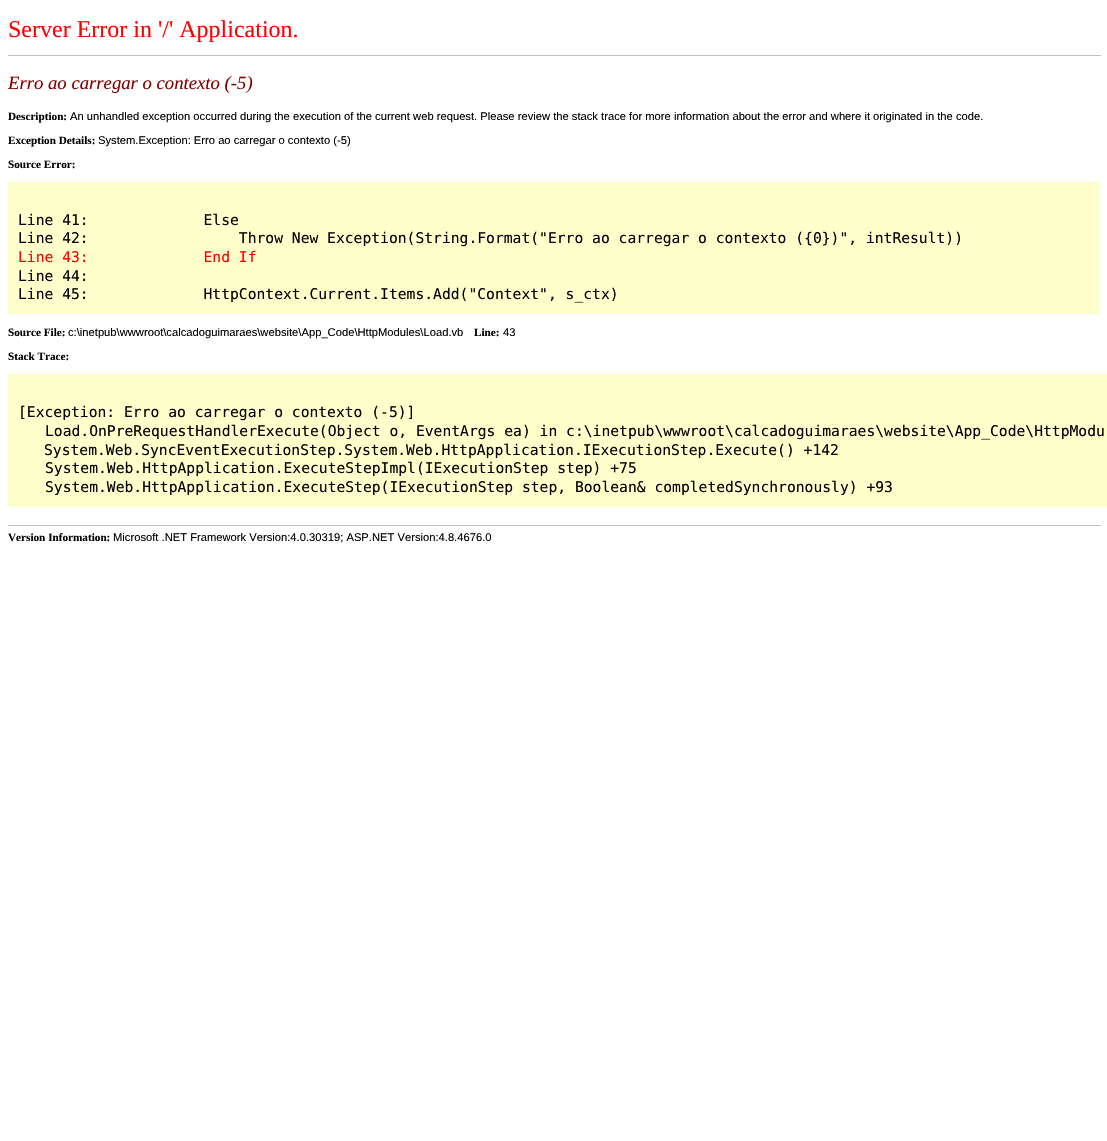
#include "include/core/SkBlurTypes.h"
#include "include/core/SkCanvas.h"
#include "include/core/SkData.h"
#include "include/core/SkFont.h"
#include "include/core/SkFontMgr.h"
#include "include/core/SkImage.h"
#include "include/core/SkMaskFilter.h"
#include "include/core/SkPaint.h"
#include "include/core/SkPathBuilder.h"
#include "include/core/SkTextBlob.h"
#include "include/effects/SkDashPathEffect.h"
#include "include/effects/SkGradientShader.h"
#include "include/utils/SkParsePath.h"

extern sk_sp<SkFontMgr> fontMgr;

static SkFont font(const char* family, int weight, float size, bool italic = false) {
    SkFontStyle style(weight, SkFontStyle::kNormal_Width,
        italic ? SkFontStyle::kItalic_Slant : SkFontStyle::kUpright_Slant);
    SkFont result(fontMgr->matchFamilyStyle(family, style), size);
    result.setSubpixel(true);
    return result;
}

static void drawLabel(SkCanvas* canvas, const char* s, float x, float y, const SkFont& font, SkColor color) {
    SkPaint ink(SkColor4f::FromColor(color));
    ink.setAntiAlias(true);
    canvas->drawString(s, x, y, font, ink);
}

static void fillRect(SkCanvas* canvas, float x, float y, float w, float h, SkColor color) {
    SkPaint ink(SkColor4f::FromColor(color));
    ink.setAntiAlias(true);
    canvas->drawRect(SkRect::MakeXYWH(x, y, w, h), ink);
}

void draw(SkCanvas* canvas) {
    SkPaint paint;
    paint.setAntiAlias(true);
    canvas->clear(0xFFFFFFFF);
    SkFont font1 = font("Liberation Serif", 400, 24);
    drawLabel(canvas, "Server Error in '/' Application.", 8, 37, font1, 0xFFFF0000);
    fillRect(canvas, 8, 55, 1093, 1, 0xFFC0C0C0);
    SkFont font2 = font("Liberation Serif", 400, 18.7f, true);
    drawLabel(canvas, "Erro ao carregar o contexto (-5)", 8, 89, font2, 0xFF800000);
    SkFont font3 = font("Liberation Serif", 700, 11.2f);
    drawLabel(canvas, "Description:", 8, 120, font3, 0xFF000000);
    SkFont font4 = font("Liberation Sans", 400, 11.2f);
    drawLabel(canvas, "An unhandled exception occurred during the execution of the current web request. Please review the stack trace for more information about the error and where it originated in the code.", 70, 120, font4, 0xFF000000);
    drawLabel(canvas, "Exception Details:", 8, 144, font3, 0xFF000000);
    drawLabel(canvas, "System.Exception: Erro ao carregar o contexto (-5)", 98, 144, font4, 0xFF000000);
    drawLabel(canvas, "Source Error:", 8, 168, font3, 0xFF000000);
    fillRect(canvas, 8, 182, 1091, 132, 0xFFFFFFCC);
    SkFont font5 = font("DejaVu Sans Mono", 400, 14.67f);
    drawLabel(canvas, "Line 41:             Else", 18, 225, font5, 0xFF000000);
    drawLabel(canvas, "Line 42:                 Throw New Exception(String.Format(\"Erro ao carregar o contexto ({0})\", intResult))", 18, 243, font5, 0xFF000000);
    drawLabel(canvas, "Line 43:             End If", 18, 262, font5, 0xFFFF0000);
    drawLabel(canvas, "Line 44:", 18, 281, font5, 0xFF000000);
    drawLabel(canvas, "Line 45:             HttpContext.Current.Items.Add(\"Context\", s_ctx)", 18, 299, font5, 0xFF000000);
    drawLabel(canvas, "Source File:", 8, 336, font3, 0xFF000000);
    drawLabel(canvas, "c:\\inetpub\\wwwroot\\calcadoguimaraes\\website\\App_Code\\HttpModules\\Load.vb", 68, 336, font4, 0xFF000000);
    drawLabel(canvas, "Line:", 474, 336, font3, 0xFF000000);
    drawLabel(canvas, "43", 503, 336, font4, 0xFF000000);
    drawLabel(canvas, "Stack Trace:", 8, 360, font3, 0xFF000000);
    fillRect(canvas, 8, 374, 1099, 133, 0xFFFFFFCC);
    drawLabel(canvas, "[Exception: Erro ao carregar o contexto (-5)]", 18, 417, font5, 0xFF000000);
    drawLabel(canvas, "Load.OnPreRequestHandlerExecute(Object o, EventArgs ea) in c:\\inetpub\\wwwroot\\calcadoguimaraes\\website\\App_Code\\HttpModu", 45, 436, font5, 0xFF000000);
    drawLabel(canvas, "System.Web.SyncEventExecutionStep.System.Web.HttpApplication.IExecutionStep.Execute() +142", 44, 455, font5, 0xFF000000);
    drawLabel(canvas, "System.Web.HttpApplication.ExecuteStepImpl(IExecutionStep step) +75", 45, 473, font5, 0xFF000000);
    drawLabel(canvas, "System.Web.HttpApplication.ExecuteStep(IExecutionStep step, Boolean& completedSynchronously) +93", 45, 492, font5, 0xFF000000);
    fillRect(canvas, 8, 525, 1093, 1, 0xFFC0C0C0);
    drawLabel(canvas, "Version Information:", 8, 541, font3, 0xFF000000);
    drawLabel(canvas, "Microsoft .NET Framework Version:4.0.30319; ASP.NET Version:4.8.4676.0", 113, 541, font4, 0xFF000000);
}
